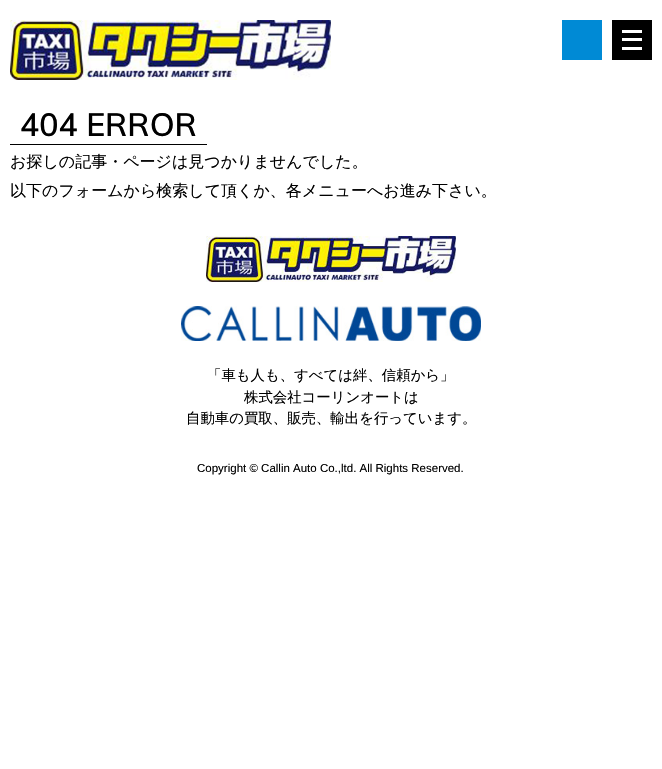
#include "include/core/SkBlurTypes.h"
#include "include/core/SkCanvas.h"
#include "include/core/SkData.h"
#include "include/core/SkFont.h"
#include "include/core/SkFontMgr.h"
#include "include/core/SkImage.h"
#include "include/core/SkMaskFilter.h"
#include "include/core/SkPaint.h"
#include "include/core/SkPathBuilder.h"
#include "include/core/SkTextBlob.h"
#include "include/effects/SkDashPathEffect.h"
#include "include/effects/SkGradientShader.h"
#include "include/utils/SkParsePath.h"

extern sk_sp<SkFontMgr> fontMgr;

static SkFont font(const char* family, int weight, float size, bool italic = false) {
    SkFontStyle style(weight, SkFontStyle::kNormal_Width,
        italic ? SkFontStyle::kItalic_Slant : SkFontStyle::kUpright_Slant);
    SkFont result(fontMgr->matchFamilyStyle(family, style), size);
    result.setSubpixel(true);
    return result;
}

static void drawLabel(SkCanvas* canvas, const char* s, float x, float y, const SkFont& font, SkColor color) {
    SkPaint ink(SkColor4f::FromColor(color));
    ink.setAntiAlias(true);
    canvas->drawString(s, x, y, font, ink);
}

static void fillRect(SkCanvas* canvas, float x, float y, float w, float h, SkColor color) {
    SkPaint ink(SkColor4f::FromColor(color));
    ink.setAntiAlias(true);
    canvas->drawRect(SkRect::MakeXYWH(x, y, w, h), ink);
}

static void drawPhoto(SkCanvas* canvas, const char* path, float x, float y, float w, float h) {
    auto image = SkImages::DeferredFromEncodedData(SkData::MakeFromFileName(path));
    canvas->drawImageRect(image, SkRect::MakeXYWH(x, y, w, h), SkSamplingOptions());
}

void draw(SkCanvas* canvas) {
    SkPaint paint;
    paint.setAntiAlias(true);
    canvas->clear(0xFFFFFFFF);
    drawPhoto(canvas, "assets/img1.png", 10, 20, 321, 60);
    fillRect(canvas, 562, 20, 40, 40, 0xFF008AD5);
    fillRect(canvas, 612, 20, 40, 40, 0xFF000000);
    fillRect(canvas, 622, 30, 20, 3, 0xFFFFFFFF);
    fillRect(canvas, 622, 38, 20, 3, 0xFFFFFFFF);
    fillRect(canvas, 622, 47, 20, 3, 0xFFFFFFFF);
    SkFont font1 = font("Muli", 600, 32);
    drawLabel(canvas, "404 ERROR", 20, 136, font1, 0xFF000000);
    fillRect(canvas, 10, 144, 197, 1, 0xFF000000);
    SkFont font2 = font("WenQuanYi Zen Hei", 500, 16);
    drawLabel(canvas, "お探しの記事・ページは見つかりませんでした。", 10, 167, font2, 0xFF000000);
    drawLabel(canvas, "以下のフォームから検索して頂くか、各メニューへお進み下さい。", 10, 196, font2, 0xFF000000);
    drawPhoto(canvas, "assets/img2.png", 206, 236, 250, 46);
    drawPhoto(canvas, "assets/img3.png", 181, 306, 300, 35);
    SkFont font3 = font("WenQuanYi Zen Hei", 500, 14.4f);
    drawLabel(canvas, "「車も人も、すべては絆、信頼から」", 207, 380, font3, 0xFF000000);
    drawLabel(canvas, "株式会社コーリンオートは", 244, 402, font3, 0xFF000000);
    drawLabel(canvas, "自動車の買取、販売、輸出を行っています。", 186, 423, font3, 0xFF000000);
    SkFont font4 = font("Liberation Sans", 400, 11.5f);
    drawLabel(canvas, "Copyright © Callin Auto Co.,ltd. All Rights Reserved.", 197, 472, font4, 0xFF000000);
}
